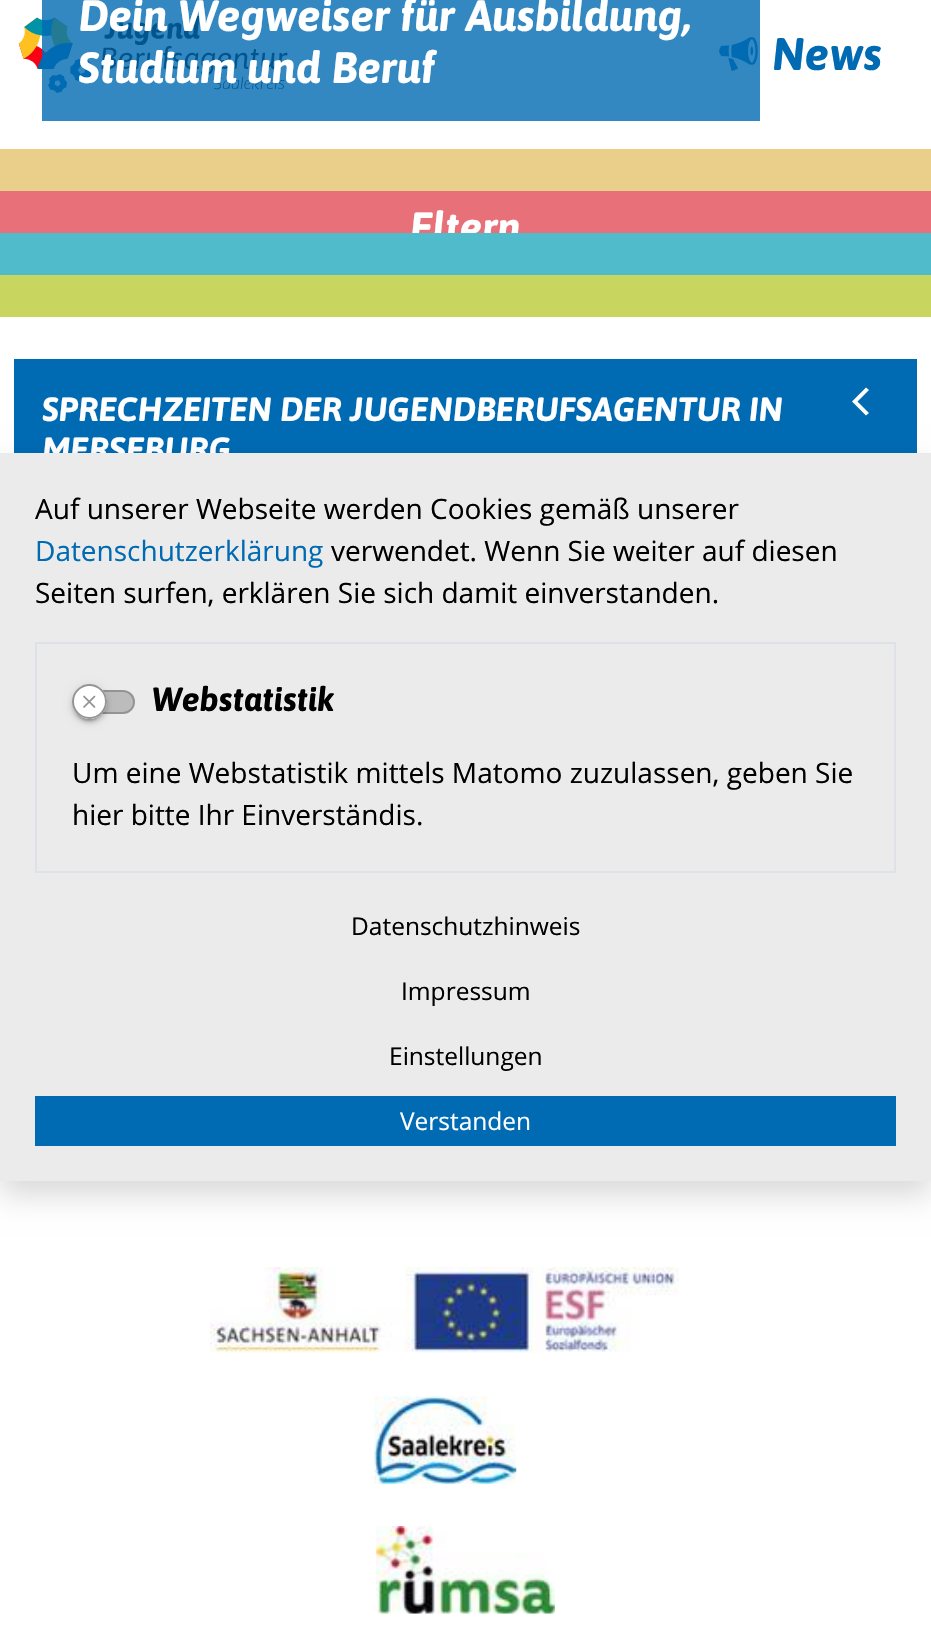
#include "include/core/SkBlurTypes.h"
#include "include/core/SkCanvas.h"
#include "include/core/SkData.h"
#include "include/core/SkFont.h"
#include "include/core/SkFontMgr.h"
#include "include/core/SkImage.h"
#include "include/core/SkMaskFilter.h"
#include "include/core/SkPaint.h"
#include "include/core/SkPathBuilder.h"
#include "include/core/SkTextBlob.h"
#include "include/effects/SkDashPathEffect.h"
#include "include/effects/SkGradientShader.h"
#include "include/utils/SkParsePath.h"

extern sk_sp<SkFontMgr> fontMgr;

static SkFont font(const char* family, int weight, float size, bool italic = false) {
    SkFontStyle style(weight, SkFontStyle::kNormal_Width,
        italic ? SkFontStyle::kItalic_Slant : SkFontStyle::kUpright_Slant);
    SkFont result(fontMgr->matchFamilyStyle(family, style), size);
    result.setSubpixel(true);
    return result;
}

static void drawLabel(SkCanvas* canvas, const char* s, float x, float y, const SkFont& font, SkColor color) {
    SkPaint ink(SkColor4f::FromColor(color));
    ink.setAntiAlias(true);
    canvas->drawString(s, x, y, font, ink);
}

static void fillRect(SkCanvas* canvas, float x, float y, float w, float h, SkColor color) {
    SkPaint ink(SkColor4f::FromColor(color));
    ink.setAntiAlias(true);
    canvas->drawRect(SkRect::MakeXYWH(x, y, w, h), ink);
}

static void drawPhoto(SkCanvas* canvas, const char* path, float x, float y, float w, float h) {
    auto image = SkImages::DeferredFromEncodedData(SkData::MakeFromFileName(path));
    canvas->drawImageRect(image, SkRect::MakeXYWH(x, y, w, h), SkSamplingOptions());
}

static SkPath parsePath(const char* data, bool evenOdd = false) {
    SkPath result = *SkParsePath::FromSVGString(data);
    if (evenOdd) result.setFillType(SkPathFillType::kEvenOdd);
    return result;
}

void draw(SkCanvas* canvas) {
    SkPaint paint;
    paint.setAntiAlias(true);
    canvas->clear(0xFFFFFFFF);
    fillRect(canvas, 42, 0, 718, 121, 0xFF3388C2);
    drawPhoto(canvas, "assets/img1.png", 18, 16, 270, 77);
    SkFont font1 = font("Asap", 700, 43.75f, true);
    drawLabel(canvas, "Dein Wegweiser für Ausbildung,", 78, 31, font1, 0xFFFFFFFF);
    drawLabel(canvas, "Studium und Beruf", 78, 83, font1, 0xFFFFFFFF);
    fillRect(canvas, 0, 149, 931, 42, 0xFFEACF8A);
    fillRect(canvas, 0, 191, 931, 42, 0xFFE77079);
    canvas->save();
    canvas->clipRect(SkRect::MakeXYWH(0, 191, 931, 42));
    SkFont font2 = font("Asap", 700, 42, true);
    drawLabel(canvas, "Eltern", 410, 242, font2, 0xFFFFFFFF);
    canvas->restore();
    fillRect(canvas, 0, 233, 931, 42, 0xFF4FBBCB);
    fillRect(canvas, 0, 275, 931, 42, 0xFFC8D65F);
    drawPhoto(canvas, "assets/img2.png", 719, 37, 39, 34);
    SkFont font3 = font("Asap", 700, 45.5f, true);
    drawLabel(canvas, "News", 772, 70, font3, 0xFF006AB3);
    fillRect(canvas, 14, 359, 903, 94, 0xFF006AB3);
    SkFont font4 = font("Asap", 700, 33.6f, true);
    drawLabel(canvas, "SPRECHZEITEN DER JUGENDBERUFSAGENTUR IN", 42, 421, font4, 0xFFFFFFFF);
    drawLabel(canvas, "MERSEBURG", 42, 461, font4, 0xFFFFFFFF);
    paint.setColor(0xFFFFFFFF);
    canvas->drawPath(parsePath("M866 415.5L869 413L857.5 401.5L869 390L866 387.5L852 401.5Z"), paint);
    drawPhoto(canvas, "assets/img3.png", 210, 1267, 469, 86);
    drawPhoto(canvas, "assets/img4.png", 374, 1396, 143, 88);
    drawPhoto(canvas, "assets/img5.png", 376, 1526, 179, 88);
    paint.setColor(0x26000000);
    paint.setMaskFilter(SkMaskFilter::MakeBlur(kNormal_SkBlurStyle, 14));
    canvas->drawRect(SkRect::MakeXYWH(0, 467, 931, 728), paint);
    paint.setMaskFilter(nullptr);
    fillRect(canvas, 0, 453, 931, 728, 0xFFEBEBEB);
    SkFont font5 = font("Open Sans", 400, 28);
    drawLabel(canvas, "Auf unserer Webseite werden Cookies gemäß unserer", 35, 519, font5, 0xFF000000);
    drawLabel(canvas, "Datenschutzerklärung", 35, 561, font5, 0xFF006AB3);
    drawLabel(canvas, "verwendet. Wenn Sie weiter auf diesen", 331, 561, font5, 0xFF000000);
    drawLabel(canvas, "Seiten surfen, erklären Sie sich damit einverstanden.", 35, 603, font5, 0xFF000000);
    paint.setStroke(true);
    paint.setStrokeWidth(2);
    paint.setColor(0xFFDEE2E6);
    canvas->drawRect(SkRect::MakeXYWH(36, 643, 859, 229), paint);
    paint.setStroke(false);
    paint.setColor(0xFFBCBCBC);
    canvas->drawRoundRect(SkRect::MakeXYWH(73, 691, 61, 22), 11, 11, paint);
    paint.setStroke(true);
    paint.setColor(0xFF949494);
    canvas->drawRoundRect(SkRect::MakeXYWH(73, 691, 61, 22), 11, 11, paint);
    paint.setStroke(false);
    paint.setColor(0x1F000000);
    paint.setMaskFilter(SkMaskFilter::MakeBlur(kNormal_SkBlurStyle, 4.5f));
    canvas->drawRoundRect(SkRect::MakeXYWH(72, 686, 35, 35), 17.5f, 17.5f, paint);
    paint.setMaskFilter(nullptr);
    paint.setColor(0x24000000);
    paint.setMaskFilter(SkMaskFilter::MakeBlur(kNormal_SkBlurStyle, 2));
    canvas->drawRoundRect(SkRect::MakeXYWH(72, 688, 35, 35), 17.5f, 17.5f, paint);
    paint.setMaskFilter(nullptr);
    paint.setColor(0x33000000);
    paint.setMaskFilter(SkMaskFilter::MakeBlur(kNormal_SkBlurStyle, 1));
    canvas->drawRoundRect(SkRect::MakeXYWH(75, 693, 28, 28), 14, 14, paint);
    paint.setMaskFilter(nullptr);
    paint.setColor(0xFFFFFFFF);
    canvas->drawCircle(89.5f, 701.5f, 17.5f, paint);
    drawPhoto(canvas, "assets/img6.png", 83, 695, 13, 13);
    paint.setStroke(true);
    paint.setColor(0xFF949494);
    canvas->drawCircle(89.5f, 701.5f, 16.5f, paint);
    drawLabel(canvas, "Webstatistik", 152, 711, font4, 0xFF000000);
    drawLabel(canvas, "Um eine Webstatistik mittels Matomo zuzulassen, geben Sie", 72, 783, font5, 0xFF000000);
    drawLabel(canvas, "hier bitte Ihr Einverständis.", 72, 825, font5, 0xFF000000);
    SkFont font6 = font("Open Sans", 400, 24.5f);
    drawLabel(canvas, "Datenschutzhinweis", 351, 935, font6, 0xFF000000);
    drawLabel(canvas, "Impressum", 401, 1000, font6, 0xFF000000);
    drawLabel(canvas, "Einstellungen", 389, 1065, font6, 0xFF000000);
    fillRect(canvas, 35, 1096, 861, 50, 0xFF006AB3);
    drawLabel(canvas, "Verstanden", 400, 1130, font6, 0xFFFFFFFF);
}
